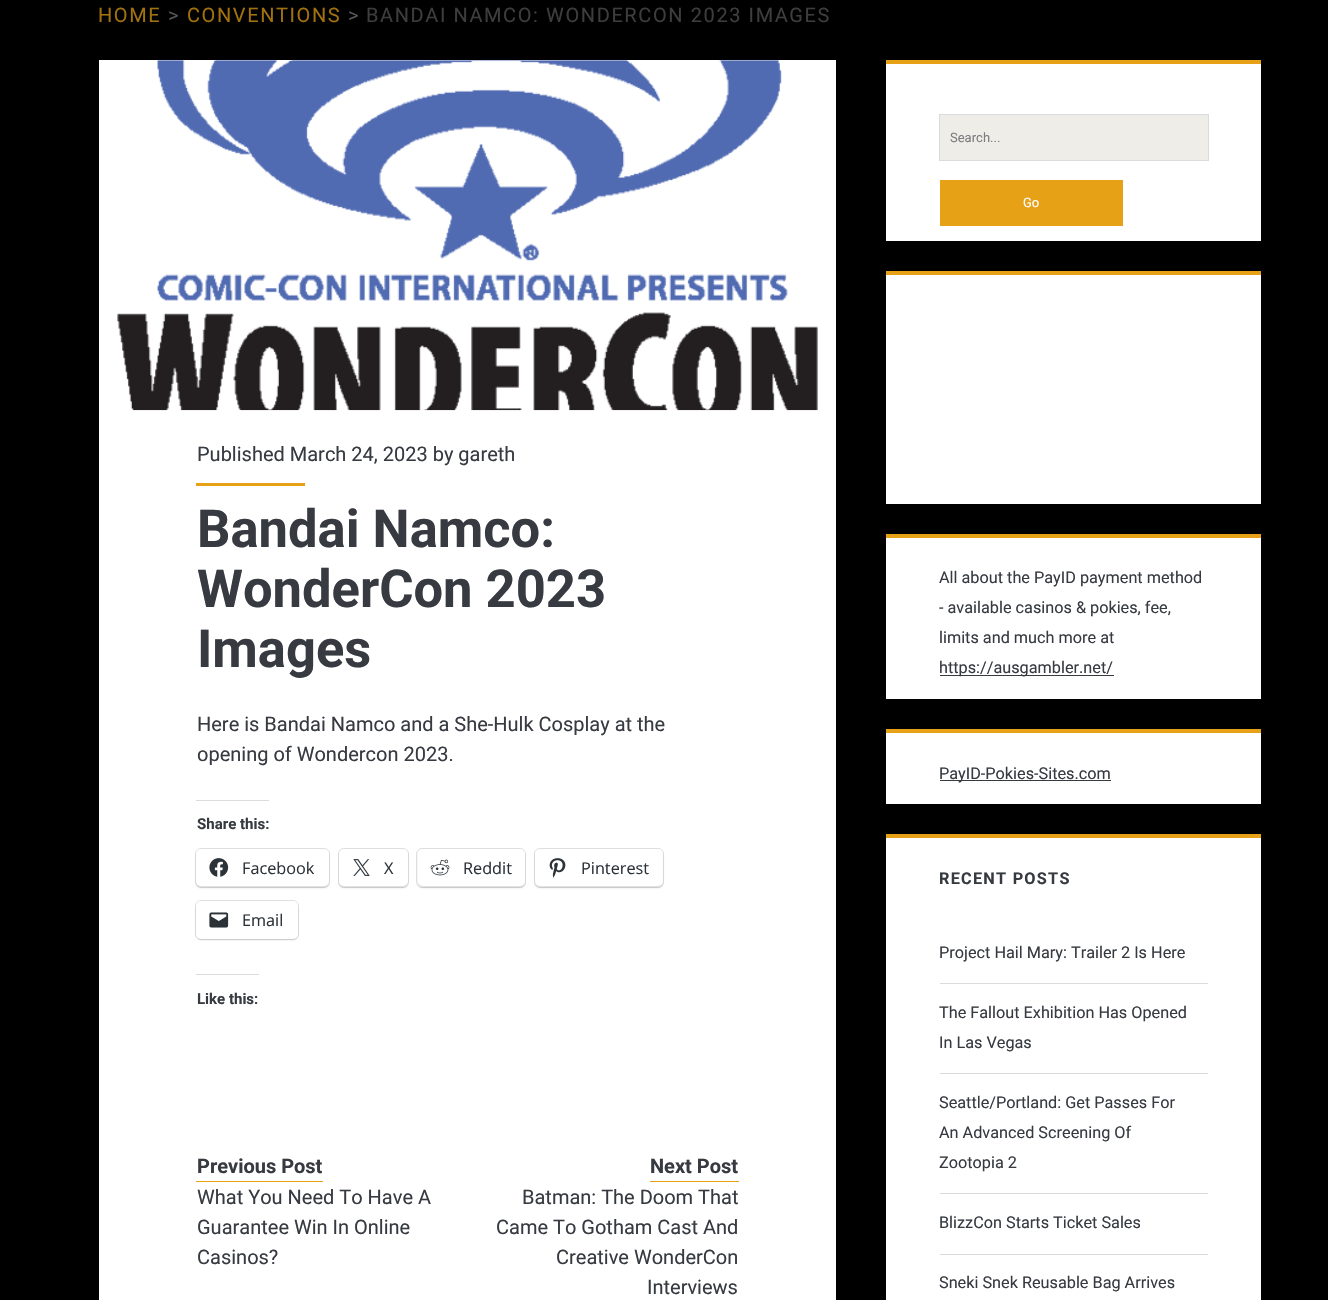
#include "include/core/SkBlurTypes.h"
#include "include/core/SkCanvas.h"
#include "include/core/SkData.h"
#include "include/core/SkFont.h"
#include "include/core/SkFontMgr.h"
#include "include/core/SkImage.h"
#include "include/core/SkMaskFilter.h"
#include "include/core/SkPaint.h"
#include "include/core/SkPathBuilder.h"
#include "include/core/SkTextBlob.h"
#include "include/effects/SkDashPathEffect.h"
#include "include/effects/SkGradientShader.h"
#include "include/utils/SkParsePath.h"

extern sk_sp<SkFontMgr> fontMgr;

static SkFont font(const char* family, int weight, float size, bool italic = false) {
    SkFontStyle style(weight, SkFontStyle::kNormal_Width,
        italic ? SkFontStyle::kItalic_Slant : SkFontStyle::kUpright_Slant);
    SkFont result(fontMgr->matchFamilyStyle(family, style), size);
    result.setSubpixel(true);
    return result;
}

static void drawLabel(SkCanvas* canvas, const char* s, float x, float y, const SkFont& font, SkColor color) {
    SkPaint ink(SkColor4f::FromColor(color));
    ink.setAntiAlias(true);
    canvas->drawString(s, x, y, font, ink);
}

static void drawTracked(SkCanvas* canvas, const char* s, float x, float y, const SkFont& font, const SkPaint& ink, float letter, float word) {
    std::vector<SkGlyphID> glyphs(font.countText(s, strlen(s), SkTextEncoding::kUTF8));
    std::vector<float> xs(glyphs.size());
    font.textToGlyphs(s, strlen(s), SkTextEncoding::kUTF8, glyphs);
    font.getXPos(glyphs, xs, x);
    float extra = 0;
    for (size_t i = 0; i < glyphs.size(); i++) {
        xs[i] += extra;
        extra += letter + word * (glyphs[i] == font.unicharToGlyph(' '));
    }
    canvas->drawTextBlob(SkTextBlob::MakeFromPosHGlyphs(glyphs, xs, y, font), 0, 0, ink);
}

static void fillRect(SkCanvas* canvas, float x, float y, float w, float h, SkColor color) {
    SkPaint ink(SkColor4f::FromColor(color));
    ink.setAntiAlias(true);
    canvas->drawRect(SkRect::MakeXYWH(x, y, w, h), ink);
}

static void fillRRect(SkCanvas* canvas, float x, float y, float w, float h, float radius, SkColor color) {
    SkPaint ink(SkColor4f::FromColor(color));
    ink.setAntiAlias(true);
    canvas->drawRoundRect(SkRect::MakeXYWH(x, y, w, h), radius, radius, ink);
}

static void drawPhoto(SkCanvas* canvas, const char* path, float x, float y, float w, float h) {
    auto image = SkImages::DeferredFromEncodedData(SkData::MakeFromFileName(path));
    canvas->drawImageRect(image, SkRect::MakeXYWH(x, y, w, h), SkSamplingOptions());
}

void draw(SkCanvas* canvas) {
    SkPaint paint;
    paint.setAntiAlias(true);
    canvas->clear(0xFF000000);
    SkFont font1 = font("Roboto", 400, 20);
    paint.setColor(0xFFA17110);
    drawTracked(canvas, "HOME", 98, 22, font1, paint, 1.6f, 0);
    paint.setColor(0xFF575859);
    drawTracked(canvas, ">", 168, 22, font1, paint, 1.6f, 0);
    paint.setColor(0xFFA17110);
    drawTracked(canvas, "CONVENTIONS", 187, 22, font1, paint, 1.6f, 0);
    paint.setColor(0xFF575859);
    drawTracked(canvas, ">", 348, 22, font1, paint, 1.6f, 0);
    paint.setColor(0xFF3D3D3E);
    drawTracked(canvas, "BANDAI NAMCO: WONDERCON 2023 IMAGES", 366, 22, font1, paint, 1.6f, 0);
    fillRect(canvas, 99, 60, 737, 1240, 0xFFFFFFFF);
    drawPhoto(canvas, "assets/img1.png", 117, 60, 701, 351);
    drawLabel(canvas, "Published March 24, 2023 by gareth", 197, 461, font1, 0xFF373B41);
    fillRect(canvas, 196, 483, 109, 3, 0xFFE6A117);
    SkFont font2 = font("Roboto", 700, 52.5f);
    drawLabel(canvas, "Bandai Namco:", 197, 547, font2, 0xFF373B41);
    drawLabel(canvas, "WonderCon 2023", 197, 607, font2, 0xFF373B41);
    drawLabel(canvas, "Images", 197, 667, font2, 0xFF373B41);
    drawLabel(canvas, "Here is Bandai Namco and a She-Hulk Cosplay at the", 197, 731, font1, 0xFF373B41);
    drawLabel(canvas, "opening of Wondercon 2023.", 197, 761, font1, 0xFF373B41);
    fillRect(canvas, 196, 800, 73, 1, 0xFFDCDCDE);
    SkFont font3 = font("Roboto", 700, 15);
    drawLabel(canvas, "Share this:", 197, 829, font3, 0xFF373B41);
    paint.setStroke(true);
    paint.setStrokeWidth(1);
    paint.setColor(0xFFE0E0E0);
    canvas->drawRoundRect(SkRect::MakeXYWH(195.5f, 848.5f, 134, 39), 5.5f, 5.5f, paint);
    paint.setStroke(false);
    paint.setColor(0x1F000000);
    paint.setMaskFilter(SkMaskFilter::MakeBlur(kNormal_SkBlurStyle, 1));
    canvas->drawRoundRect(SkRect::MakeXYWH(196, 850, 133, 38), 5, 5, paint);
    paint.setMaskFilter(nullptr);
    fillRRect(canvas, 196, 849, 133, 37, 5, 0xFFFFFFFF);
    drawPhoto(canvas, "assets/img2.png", 209, 858, 20, 19);
    SkFont font4 = font("Open Sans", 400, 16.25f);
    drawLabel(canvas, "Facebook", 242, 874, font4, 0xFF2C3338);
    paint.setStroke(true);
    paint.setColor(0xFFE0E0E0);
    canvas->drawRoundRect(SkRect::MakeXYWH(338.5f, 848.5f, 70, 39), 5.5f, 5.5f, paint);
    paint.setStroke(false);
    paint.setColor(0x1F000000);
    paint.setMaskFilter(SkMaskFilter::MakeBlur(kNormal_SkBlurStyle, 1));
    canvas->drawRoundRect(SkRect::MakeXYWH(339, 850, 69, 38), 5, 5, paint);
    paint.setMaskFilter(nullptr);
    fillRRect(canvas, 339, 849, 69, 37, 5, 0xFFFFFFFF);
    drawPhoto(canvas, "assets/img3.png", 353, 859, 17, 17);
    drawLabel(canvas, "X", 384, 874, font4, 0xFF2C3338);
    paint.setStroke(true);
    paint.setColor(0xFFE0E0E0);
    canvas->drawRoundRect(SkRect::MakeXYWH(416.5f, 848.5f, 109, 39), 5.5f, 5.5f, paint);
    paint.setStroke(false);
    paint.setColor(0x1F000000);
    paint.setMaskFilter(SkMaskFilter::MakeBlur(kNormal_SkBlurStyle, 1));
    canvas->drawRoundRect(SkRect::MakeXYWH(418, 850, 107, 38), 5, 5, paint);
    paint.setMaskFilter(nullptr);
    fillRRect(canvas, 418, 849, 107, 37, 5, 0xFFFFFFFF);
    drawPhoto(canvas, "assets/img4.png", 430, 859, 20, 17);
    drawLabel(canvas, "Reddit", 463, 874, font4, 0xFF2C3338);
    paint.setStroke(true);
    paint.setColor(0xFFE0E0E0);
    canvas->drawRoundRect(SkRect::MakeXYWH(534.5f, 848.5f, 129, 39), 5.5f, 5.5f, paint);
    paint.setStroke(false);
    paint.setColor(0x1F000000);
    paint.setMaskFilter(SkMaskFilter::MakeBlur(kNormal_SkBlurStyle, 1));
    canvas->drawRoundRect(SkRect::MakeXYWH(535, 850, 128, 38), 5, 5, paint);
    paint.setMaskFilter(nullptr);
    fillRRect(canvas, 535, 849, 128, 37, 5, 0xFFFFFFFF);
    drawPhoto(canvas, "assets/img5.png", 549, 858, 17, 20);
    drawLabel(canvas, "Pinterest", 581, 874, font4, 0xFF2C3338);
    paint.setStroke(true);
    paint.setColor(0xFFE0E0E0);
    canvas->drawRoundRect(SkRect::MakeXYWH(195.5f, 900.5f, 103, 39), 5.5f, 5.5f, paint);
    paint.setStroke(false);
    paint.setColor(0x1F000000);
    paint.setMaskFilter(SkMaskFilter::MakeBlur(kNormal_SkBlurStyle, 1));
    canvas->drawRoundRect(SkRect::MakeXYWH(196, 903, 102, 37), 5, 5, paint);
    paint.setMaskFilter(nullptr);
    fillRRect(canvas, 196, 901, 102, 38, 5, 0xFFFFFFFF);
    drawPhoto(canvas, "assets/img6.png", 209, 912, 20, 16);
    drawLabel(canvas, "Email", 242, 926, font4, 0xFF2C3338);
    fillRect(canvas, 196, 974, 63, 1, 0xFFDCDCDE);
    drawLabel(canvas, "Like this:", 197, 1004, font3, 0xFF373B41);
    fillRect(canvas, 196, 1181, 127, 1, 0xFFE6A117);
    SkFont font5 = font("Roboto", 700, 20);
    drawLabel(canvas, "Previous Post", 197, 1173, font5, 0xFF373B41);
    drawLabel(canvas, "What You Need To Have A", 197, 1204, font1, 0xFF373B41);
    drawLabel(canvas, "Guarantee Win In Online", 197, 1234, font1, 0xFF373B41);
    drawLabel(canvas, "Casinos?", 197, 1264, font1, 0xFF373B41);
    fillRect(canvas, 650, 1181, 89, 1, 0xFFE6A117);
    drawLabel(canvas, "Next Post", 650, 1173, font5, 0xFF373B41);
    drawLabel(canvas, "Batman: The Doom That", 522, 1204, font1, 0xFF373B41);
    drawLabel(canvas, "Came To Gotham Cast And", 496, 1234, font1, 0xFF373B41);
    drawLabel(canvas, "Creative WonderCon", 556, 1264, font1, 0xFF373B41);
    drawLabel(canvas, "Interviews", 647, 1294, font1, 0xFF373B41);
    fillRect(canvas, 886, 64, 375, 177, 0xFFFFFFFF);
    fillRect(canvas, 886, 60, 375, 4, 0xFFE6A117);
    fillRect(canvas, 940, 115, 268, 45, 0xFFEEEDE8);
    paint.setStroke(true);
    paint.setColor(0xFFD9DCDF);
    canvas->drawRect(SkRect::MakeXYWH(939.5f, 114.5f, 269, 46), paint);
    SkFont font6 = font("Roboto", 400, 13);
    drawLabel(canvas, "Search...", 950, 142, font6, 0xFF7C7D7F);
    fillRect(canvas, 940, 180, 183, 46, 0xFFE6A117);
    drawLabel(canvas, "Go", 1023, 207, font6, 0xFFFFFFFF);
    fillRect(canvas, 886, 275, 375, 229, 0xFFFFFFFF);
    fillRect(canvas, 886, 271, 375, 4, 0xFFE6A117);
    fillRect(canvas, 886, 538, 375, 161, 0xFFFFFFFF);
    fillRect(canvas, 886, 534, 375, 4, 0xFFE6A117);
    SkFont font7 = font("Roboto", 400, 16.25f);
    drawLabel(canvas, "All about the PayID payment method", 939, 583, font7, 0xFF373B41);
    drawLabel(canvas, "- available casinos & pokies, fee,", 939, 613, font7, 0xFF373B41);
    drawLabel(canvas, "limits and much more at", 939, 643, font7, 0xFF373B41);
    fillRect(canvas, 940, 675, 174, 1, 0xFF373B41);
    drawLabel(canvas, "https://ausgambler.net/", 939, 673, font7, 0xFF373B41);
    fillRect(canvas, 886, 733, 375, 71, 0xFFFFFFFF);
    fillRect(canvas, 886, 729, 375, 4, 0xFFE6A117);
    fillRect(canvas, 940, 780, 171, 1, 0xFF373B41);
    drawLabel(canvas, "PayID-Pokies-Sites.com", 939, 779, font7, 0xFF373B41);
    fillRect(canvas, 886, 838, 375, 462, 0xFFFFFFFF);
    fillRect(canvas, 886, 834, 375, 4, 0xFFE6A117);
    SkFont font8 = font("Roboto", 700, 16.25f);
    paint.setStroke(false);
    paint.setColor(0xFF373B41);
    drawTracked(canvas, "RECENT POSTS", 939, 884, font8, paint, 1.25f, 0);
    fillRect(canvas, 940, 983, 268, 1, 0xFFD9DCDF);
    drawLabel(canvas, "Project Hail Mary: Trailer 2 Is Here", 939, 958, font7, 0xFF373B41);
    fillRect(canvas, 940, 1073, 268, 1, 0xFFD9DCDF);
    drawLabel(canvas, "The Fallout Exhibition Has Opened", 939, 1018, font7, 0xFF373B41);
    drawLabel(canvas, "In Las Vegas", 939, 1048, font7, 0xFF373B41);
    fillRect(canvas, 940, 1193, 268, 1, 0xFFD9DCDF);
    drawLabel(canvas, "Seattle/Portland: Get Passes For", 939, 1108, font7, 0xFF373B41);
    drawLabel(canvas, "An Advanced Screening Of", 939, 1138, font7, 0xFF373B41);
    drawLabel(canvas, "Zootopia 2", 939, 1168, font7, 0xFF373B41);
    fillRect(canvas, 940, 1254, 268, 1, 0xFFD9DCDF);
    drawLabel(canvas, "BlizzCon Starts Ticket Sales", 939, 1228, font7, 0xFF373B41);
    drawLabel(canvas, "Sneki Snek Reusable Bag Arrives", 939, 1288, font7, 0xFF373B41);
}
